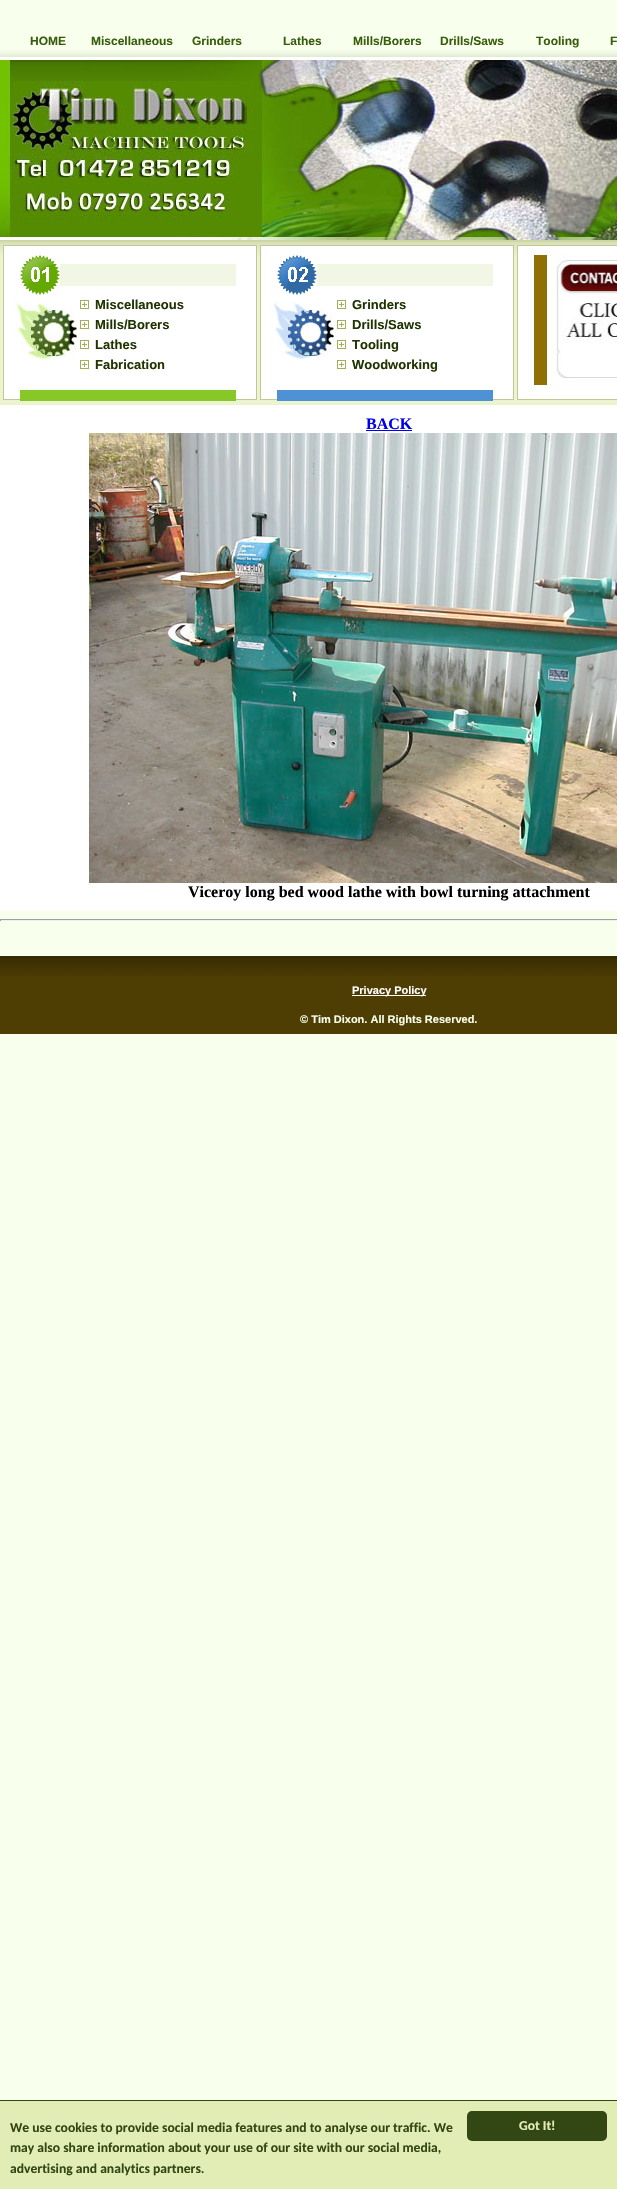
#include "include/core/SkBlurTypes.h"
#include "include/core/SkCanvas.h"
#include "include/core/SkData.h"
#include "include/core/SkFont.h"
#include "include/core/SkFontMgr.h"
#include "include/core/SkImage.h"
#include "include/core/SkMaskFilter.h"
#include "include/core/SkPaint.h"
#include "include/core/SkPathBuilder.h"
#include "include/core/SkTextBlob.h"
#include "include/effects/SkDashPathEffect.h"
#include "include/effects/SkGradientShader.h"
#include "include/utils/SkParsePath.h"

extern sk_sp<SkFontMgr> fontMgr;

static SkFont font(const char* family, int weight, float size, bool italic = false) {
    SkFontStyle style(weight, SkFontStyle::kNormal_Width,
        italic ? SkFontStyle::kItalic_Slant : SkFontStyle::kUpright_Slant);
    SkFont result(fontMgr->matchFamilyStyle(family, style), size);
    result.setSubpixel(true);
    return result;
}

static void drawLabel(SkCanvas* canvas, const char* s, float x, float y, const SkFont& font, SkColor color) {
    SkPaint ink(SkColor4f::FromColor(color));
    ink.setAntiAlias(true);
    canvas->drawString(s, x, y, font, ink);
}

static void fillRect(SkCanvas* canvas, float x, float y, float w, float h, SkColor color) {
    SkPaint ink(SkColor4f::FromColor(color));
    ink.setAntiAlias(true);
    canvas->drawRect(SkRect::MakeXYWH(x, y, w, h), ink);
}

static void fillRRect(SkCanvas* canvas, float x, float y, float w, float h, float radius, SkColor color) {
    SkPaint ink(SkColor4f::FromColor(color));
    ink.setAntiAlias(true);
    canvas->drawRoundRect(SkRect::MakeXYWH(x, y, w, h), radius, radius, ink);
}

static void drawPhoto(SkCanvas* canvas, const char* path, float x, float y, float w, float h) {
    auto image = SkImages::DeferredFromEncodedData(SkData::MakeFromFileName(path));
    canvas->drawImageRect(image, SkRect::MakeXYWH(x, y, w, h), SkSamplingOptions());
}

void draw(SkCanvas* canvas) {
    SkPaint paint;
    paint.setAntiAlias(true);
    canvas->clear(0xFFF8FFED);
    drawPhoto(canvas, "assets/img1.png", 0, 50, 617, 355);
    drawPhoto(canvas, "assets/img2.png", 5, 60, 612, 180);
    drawPhoto(canvas, "assets/img3.png", 5, 0, 85, 57);
    SkFont font1 = font("Liberation Sans", 700, 12);
    drawLabel(canvas, "HOME", 30, 45, font1, 0xFF375D0B);
    drawPhoto(canvas, "assets/img3.png", 90, 0, 85, 57);
    drawLabel(canvas, "Miscellaneous", 91, 45, font1, 0xFF375D0B);
    drawPhoto(canvas, "assets/img3.png", 175, 0, 85, 57);
    drawLabel(canvas, "Grinders", 192, 45, font1, 0xFF375D0B);
    drawPhoto(canvas, "assets/img3.png", 260, 0, 85, 57);
    drawLabel(canvas, "Lathes", 283, 45, font1, 0xFF375D0B);
    drawPhoto(canvas, "assets/img3.png", 345, 0, 85, 57);
    drawLabel(canvas, "Mills/Borers", 353, 45, font1, 0xFF375D0B);
    drawPhoto(canvas, "assets/img3.png", 430, 0, 85, 57);
    drawLabel(canvas, "Drills/Saws", 440, 45, font1, 0xFF375D0B);
    drawPhoto(canvas, "assets/img3.png", 515, 0, 85, 57);
    drawLabel(canvas, "Tooling", 536, 45, font1, 0xFF375D0B);
    drawPhoto(canvas, "assets/img4.png", 600, 0, 17, 57);
    drawLabel(canvas, "F", 610, 45, font1, 0xFF375D0B);
    drawPhoto(canvas, "assets/img5.png", 13, 81, 240, 140);
    fillRect(canvas, 4, 246, 252, 153, 0xFFFFFFFF);
    drawPhoto(canvas, "assets/img6.png", 12, 302, 66, 61);
    paint.setStroke(true);
    paint.setStrokeWidth(1);
    paint.setColor(0xFFBFC897);
    canvas->drawRect(SkRect::MakeXYWH(3.5f, 245.5f, 253, 154), paint);
    fillRect(canvas, 60, 264, 176, 22, 0xFFF2F6E4);
    drawPhoto(canvas, "assets/img7.png", 20, 255, 40, 40);
    drawPhoto(canvas, "assets/img8.png", 80, 300, 9, 9);
    SkFont font2 = font("Liberation Sans", 700, 13);
    drawLabel(canvas, "Miscellaneous", 95, 309, font2, 0xFF1F3400);
    drawPhoto(canvas, "assets/img8.png", 80, 320, 9, 9);
    drawLabel(canvas, "Mills/Borers", 95, 329, font2, 0xFF1F3400);
    drawPhoto(canvas, "assets/img8.png", 80, 340, 9, 9);
    drawLabel(canvas, "Lathes", 95, 349, font2, 0xFF1F3400);
    drawPhoto(canvas, "assets/img8.png", 80, 360, 9, 9);
    drawLabel(canvas, "Fabrication", 95, 369, font2, 0xFF1F3400);
    fillRect(canvas, 20, 390, 216, 11, 0xFF86C826);
    fillRect(canvas, 261, 246, 252, 153, 0xFFFFFFFF);
    drawPhoto(canvas, "assets/img9.png", 269, 302, 65, 58);
    canvas->drawRect(SkRect::MakeXYWH(260.5f, 245.5f, 253, 154), paint);
    fillRect(canvas, 317, 264, 176, 22, 0xFFF2F6E4);
    drawPhoto(canvas, "assets/img10.png", 277, 255, 40, 40);
    drawPhoto(canvas, "assets/img8.png", 337, 300, 9, 9);
    drawLabel(canvas, "Grinders", 352, 309, font2, 0xFF1F3400);
    drawPhoto(canvas, "assets/img8.png", 337, 320, 9, 9);
    drawLabel(canvas, "Drills/Saws", 352, 329, font2, 0xFF1F3400);
    drawPhoto(canvas, "assets/img8.png", 337, 340, 9, 9);
    drawLabel(canvas, "Tooling", 352, 349, font2, 0xFF1F3400);
    drawPhoto(canvas, "assets/img8.png", 337, 360, 9, 9);
    drawLabel(canvas, "Woodworking", 352, 369, font2, 0xFF1F3400);
    fillRect(canvas, 277, 390, 216, 11, 0xFF4F91D5);
    paint.setStroke(false);
    paint.setColor(0xFFFFFFFF);
    canvas->drawRect(SkRect::MakeXYWH(517.5f, 245.5f, 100, 154), paint);
    paint.setStroke(true);
    paint.setColor(0xFFBFC897);
    canvas->drawRect(SkRect::MakeXYWH(517.5f, 245.5f, 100, 154), paint);
    fillRect(canvas, 534, 255, 13, 130, 0xFF8F7004);
    drawPhoto(canvas, "assets/img11.png", 547, 255, 70, 130);
    fillRect(canvas, 0, 405, 617, 506, 0xFFFFFFFF);
    SkFont font3 = font("Liberation Serif", 700, 16);
    drawLabel(canvas, "BACK", 366, 429, font3, 0xFF0000EE);
    fillRect(canvas, 366, 430, 46, 1, 0xFF0000EE);
    drawPhoto(canvas, "assets/img12.png", 89, 433, 528, 450);
    drawLabel(canvas, "Viceroy long bed wood lathe with bowl turning attachment", 188, 897, font3, 0xFF000000);
    fillRect(canvas, 0, 919, 617, 1, 0xFF9F9F9F);
    fillRect(canvas, 0, 920, 617, 1, 0xFFEEEEEE);
    fillRect(canvas, 0, 919, 1, 2, 0xFF9F9F9F);
    drawPhoto(canvas, "assets/img13.png", 0, 956, 617, 20);
    fillRect(canvas, 0, 976, 617, 58, 0xFF4F3E03);
    fillRect(canvas, 352, 995, 74, 1, 0xFFFFFFFF);
    SkFont font4 = font("Liberation Sans", 700, 11);
    drawLabel(canvas, "Privacy Policy", 352, 994, font4, 0xFFFFFFFF);
    drawLabel(canvas, "© Tim Dixon. All Rights Reserved.", 300, 1023, font4, 0xFFF8FFED);
    fillRect(canvas, 0, 2101, 617, 88, 0xFFE2EDB5);
    fillRect(canvas, 0, 2100, 617, 1, 0xFF334714);
    SkFont font5 = font("Carlito", 700, 13.6f);
    drawLabel(canvas, "We use cookies to provide social media features and to analyse our traffic. We", 10, 2132, font5, 0xFF334714);
    drawLabel(canvas, "may also share information about your use of our site with our social media,", 10, 2152, font5, 0xFF334714);
    drawLabel(canvas, "advertising and analytics partners.", 10, 2173, font5, 0xFF334714);
    fillRRect(canvas, 467, 2111, 140, 30, 5, 0xFF334714);
    drawLabel(canvas, "Got It!", 519, 2130, font5, 0xFFE2EDB5);
}
